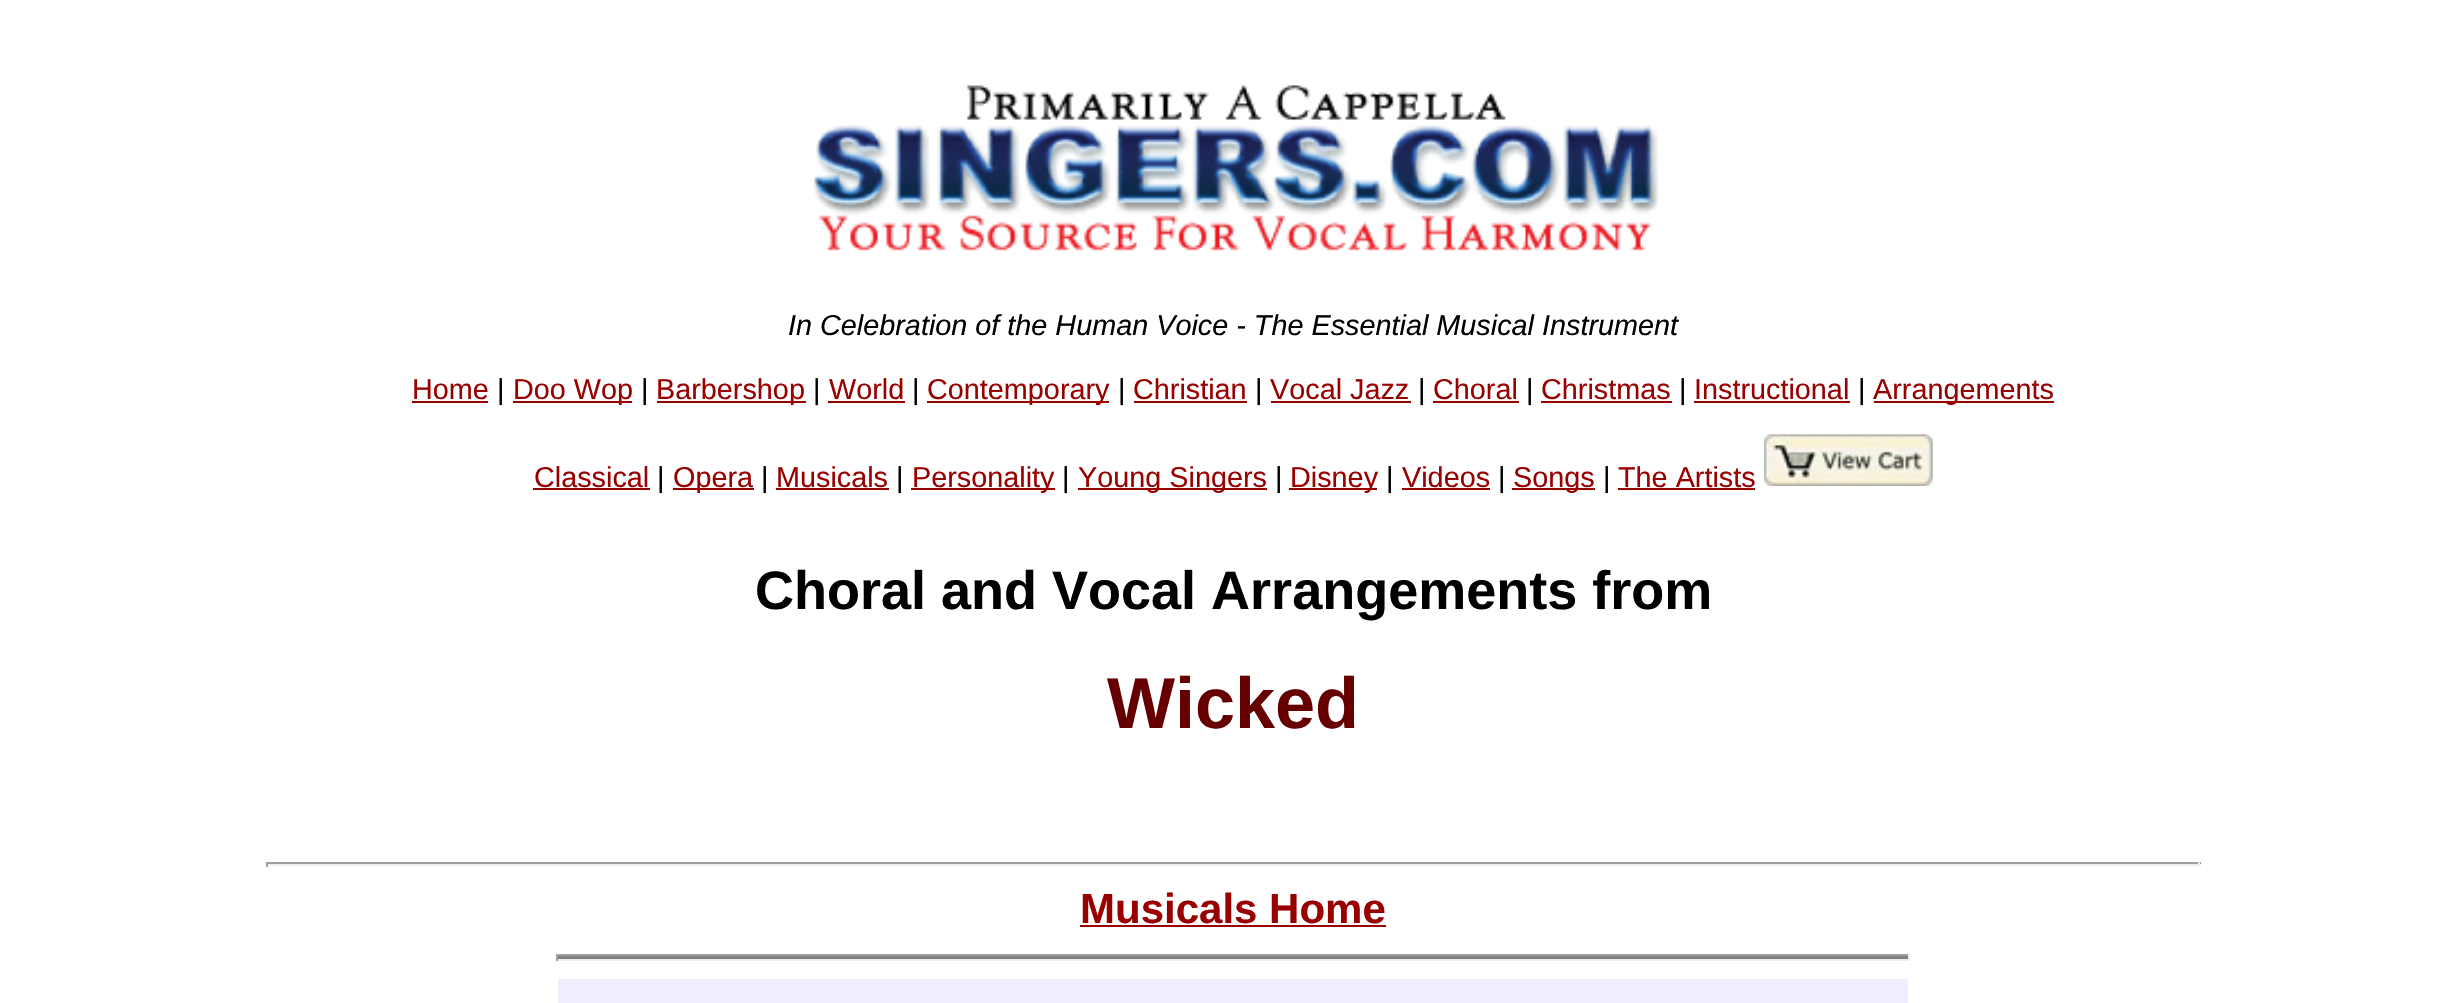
#include "include/core/SkBlurTypes.h"
#include "include/core/SkCanvas.h"
#include "include/core/SkData.h"
#include "include/core/SkFont.h"
#include "include/core/SkFontMgr.h"
#include "include/core/SkImage.h"
#include "include/core/SkMaskFilter.h"
#include "include/core/SkPaint.h"
#include "include/core/SkPathBuilder.h"
#include "include/core/SkTextBlob.h"
#include "include/effects/SkDashPathEffect.h"
#include "include/effects/SkGradientShader.h"
#include "include/utils/SkParsePath.h"

extern sk_sp<SkFontMgr> fontMgr;

static SkFont font(const char* family, int weight, float size, bool italic = false) {
    SkFontStyle style(weight, SkFontStyle::kNormal_Width,
        italic ? SkFontStyle::kItalic_Slant : SkFontStyle::kUpright_Slant);
    SkFont result(fontMgr->matchFamilyStyle(family, style), size);
    result.setSubpixel(true);
    return result;
}

static void drawLabel(SkCanvas* canvas, const char* s, float x, float y, const SkFont& font, SkColor color) {
    SkPaint ink(SkColor4f::FromColor(color));
    ink.setAntiAlias(true);
    canvas->drawString(s, x, y, font, ink);
}

static void fillRect(SkCanvas* canvas, float x, float y, float w, float h, SkColor color) {
    SkPaint ink(SkColor4f::FromColor(color));
    ink.setAntiAlias(true);
    canvas->drawRect(SkRect::MakeXYWH(x, y, w, h), ink);
}

static void drawPhoto(SkCanvas* canvas, const char* path, float x, float y, float w, float h) {
    auto image = SkImages::DeferredFromEncodedData(SkData::MakeFromFileName(path));
    canvas->drawImageRect(image, SkRect::MakeXYWH(x, y, w, h), SkSamplingOptions());
}

void draw(SkCanvas* canvas) {
    SkPaint paint;
    paint.setAntiAlias(true);
    canvas->clear(0xFFFFFFFF);
    drawPhoto(canvas, "assets/img1.png", 814, 85, 845, 166);
    SkFont font1 = font("Liberation Sans", 400, 28.8f, true);
    drawLabel(canvas, "In Celebration of the Human Voice - The Essential Musical Instrument", 788, 335, font1, 0xFF000000);
    SkFont font2 = font("Liberation Sans", 400, 28.8f);
    drawLabel(canvas, "Home", 412, 399, font2, 0xFF990000);
    fillRect(canvas, 412, 401, 76, 2, 0xFF990000);
    drawLabel(canvas, "|", 497, 399, font2, 0xFF000000);
    fillRect(canvas, 513, 401, 119, 2, 0xFF990000);
    drawLabel(canvas, "Doo Wop", 513, 399, font2, 0xFF990000);
    drawLabel(canvas, "|", 641, 399, font2, 0xFF000000);
    fillRect(canvas, 657, 401, 149, 2, 0xFF990000);
    drawLabel(canvas, "Barbershop", 656, 399, font2, 0xFF990000);
    drawLabel(canvas, "|", 813, 399, font2, 0xFF000000);
    drawLabel(canvas, "World", 829, 399, font2, 0xFF990000);
    fillRect(canvas, 828, 401, 77, 2, 0xFF990000);
    drawLabel(canvas, "|", 912, 399, font2, 0xFF000000);
    fillRect(canvas, 927, 401, 182, 2, 0xFF990000);
    drawLabel(canvas, "Contemporary", 927, 399, font2, 0xFF990000);
    drawLabel(canvas, "|", 1118, 399, font2, 0xFF000000);
    drawLabel(canvas, "Christian", 1133, 399, font2, 0xFF990000);
    fillRect(canvas, 1134, 401, 113, 2, 0xFF990000);
    drawLabel(canvas, "|", 1255, 399, font2, 0xFF000000);
    drawLabel(canvas, "Vocal Jazz", 1270, 399, font2, 0xFF990000);
    fillRect(canvas, 1271, 401, 140, 2, 0xFF990000);
    drawLabel(canvas, "|", 1418, 399, font2, 0xFF000000);
    drawLabel(canvas, "Choral", 1433, 399, font2, 0xFF990000);
    fillRect(canvas, 1433, 401, 86, 2, 0xFF990000);
    drawLabel(canvas, "|", 1526, 399, font2, 0xFF000000);
    drawLabel(canvas, "Christmas", 1541, 399, font2, 0xFF990000);
    fillRect(canvas, 1541, 401, 131, 2, 0xFF990000);
    drawLabel(canvas, "|", 1679, 399, font2, 0xFF000000);
    drawLabel(canvas, "Instructional", 1694, 399, font2, 0xFF990000);
    fillRect(canvas, 1694, 401, 156, 2, 0xFF990000);
    drawLabel(canvas, "|", 1858, 399, font2, 0xFF000000);
    fillRect(canvas, 1874, 401, 180, 2, 0xFF990000);
    drawLabel(canvas, "Arrangements", 1873, 399, font2, 0xFF990000);
    drawLabel(canvas, "Classical", 534, 487, font2, 0xFF990000);
    fillRect(canvas, 533, 488, 117, 2, 0xFF990000);
    drawLabel(canvas, "|", 657, 487, font2, 0xFF000000);
    fillRect(canvas, 673, 488, 81, 2, 0xFF990000);
    drawLabel(canvas, "Opera", 673, 487, font2, 0xFF990000);
    drawLabel(canvas, "|", 761, 487, font2, 0xFF000000);
    drawLabel(canvas, "Musicals", 776, 487, font2, 0xFF990000);
    fillRect(canvas, 776, 488, 113, 2, 0xFF990000);
    drawLabel(canvas, "|", 896, 487, font2, 0xFF000000);
    fillRect(canvas, 911, 488, 144, 2, 0xFF990000);
    drawLabel(canvas, "Personality", 912, 487, font2, 0xFF990000);
    drawLabel(canvas, "|", 1062, 487, font2, 0xFF000000);
    fillRect(canvas, 1078, 488, 189, 2, 0xFF990000);
    drawLabel(canvas, "Young Singers", 1078, 487, font2, 0xFF990000);
    drawLabel(canvas, "|", 1275, 487, font2, 0xFF000000);
    fillRect(canvas, 1289, 488, 88, 2, 0xFF990000);
    drawLabel(canvas, "Disney", 1290, 487, font2, 0xFF990000);
    drawLabel(canvas, "|", 1386, 487, font2, 0xFF000000);
    drawLabel(canvas, "Videos", 1402, 487, font2, 0xFF990000);
    fillRect(canvas, 1402, 488, 88, 2, 0xFF990000);
    drawLabel(canvas, "|", 1498, 487, font2, 0xFF000000);
    fillRect(canvas, 1512, 488, 83, 2, 0xFF990000);
    drawLabel(canvas, "Songs", 1513, 487, font2, 0xFF990000);
    drawLabel(canvas, "|", 1603, 487, font2, 0xFF000000);
    drawLabel(canvas, "The Artists", 1618, 487, font2, 0xFF990000);
    fillRect(canvas, 1618, 488, 137, 2, 0xFF990000);
    drawPhoto(canvas, "assets/img2.png", 1764, 434, 169, 52);
    SkFont font3 = font("Liberation Sans", 700, 54);
    drawLabel(canvas, "Choral and Vocal Arrangements from", 755, 609, font3, 0xFF000000);
    SkFont font4 = font("Liberation Sans", 700, 72);
    drawLabel(canvas, "Wicked", 1107, 728, font4, 0xFF660000);
    fillRect(canvas, 266, 862, 1935, 2, 0xFF9F9F9F);
    fillRect(canvas, 2198, 862, 2, 5, 0xFFEEEEEE);
    fillRect(canvas, 266, 864, 1935, 2, 0xFFEEEEEE);
    fillRect(canvas, 266, 862, 2, 5, 0xFF9F9F9F);
    SkFont font5 = font("Liberation Sans", 700, 42);
    drawLabel(canvas, "Musicals Home", 1080, 923, font5, 0xFF990000);
    fillRect(canvas, 1080, 925, 306, 2, 0xFF990000);
    fillRect(canvas, 556, 956, 1354, 3, 0xFF808080);
    fillRect(canvas, 556, 954, 1354, 2, 0xFF9F9F9F);
    fillRect(canvas, 1908, 954, 2, 7, 0xFFEEEEEE);
    fillRect(canvas, 556, 959, 1354, 2, 0xFFEEEEEE);
    fillRect(canvas, 556, 954, 2, 7, 0xFF9F9F9F);
    fillRect(canvas, 558, 979, 1350, 24, 0xFFEEEEFF);
}
